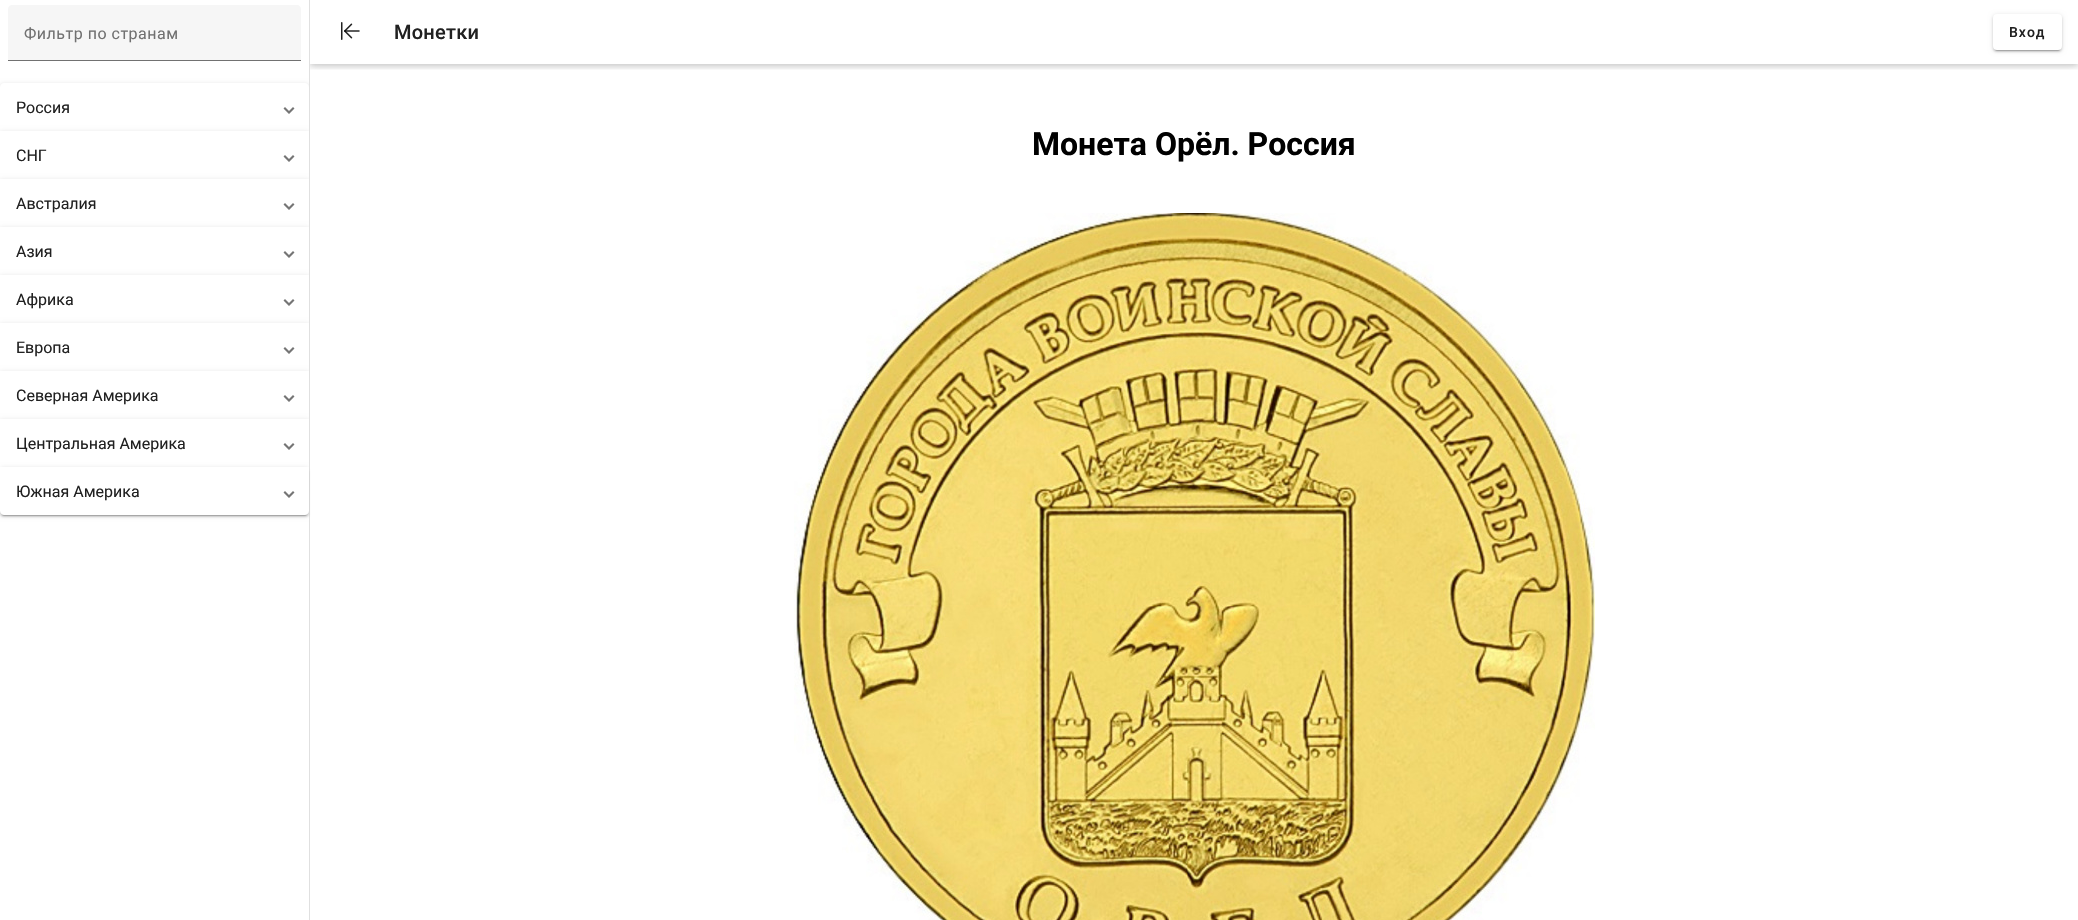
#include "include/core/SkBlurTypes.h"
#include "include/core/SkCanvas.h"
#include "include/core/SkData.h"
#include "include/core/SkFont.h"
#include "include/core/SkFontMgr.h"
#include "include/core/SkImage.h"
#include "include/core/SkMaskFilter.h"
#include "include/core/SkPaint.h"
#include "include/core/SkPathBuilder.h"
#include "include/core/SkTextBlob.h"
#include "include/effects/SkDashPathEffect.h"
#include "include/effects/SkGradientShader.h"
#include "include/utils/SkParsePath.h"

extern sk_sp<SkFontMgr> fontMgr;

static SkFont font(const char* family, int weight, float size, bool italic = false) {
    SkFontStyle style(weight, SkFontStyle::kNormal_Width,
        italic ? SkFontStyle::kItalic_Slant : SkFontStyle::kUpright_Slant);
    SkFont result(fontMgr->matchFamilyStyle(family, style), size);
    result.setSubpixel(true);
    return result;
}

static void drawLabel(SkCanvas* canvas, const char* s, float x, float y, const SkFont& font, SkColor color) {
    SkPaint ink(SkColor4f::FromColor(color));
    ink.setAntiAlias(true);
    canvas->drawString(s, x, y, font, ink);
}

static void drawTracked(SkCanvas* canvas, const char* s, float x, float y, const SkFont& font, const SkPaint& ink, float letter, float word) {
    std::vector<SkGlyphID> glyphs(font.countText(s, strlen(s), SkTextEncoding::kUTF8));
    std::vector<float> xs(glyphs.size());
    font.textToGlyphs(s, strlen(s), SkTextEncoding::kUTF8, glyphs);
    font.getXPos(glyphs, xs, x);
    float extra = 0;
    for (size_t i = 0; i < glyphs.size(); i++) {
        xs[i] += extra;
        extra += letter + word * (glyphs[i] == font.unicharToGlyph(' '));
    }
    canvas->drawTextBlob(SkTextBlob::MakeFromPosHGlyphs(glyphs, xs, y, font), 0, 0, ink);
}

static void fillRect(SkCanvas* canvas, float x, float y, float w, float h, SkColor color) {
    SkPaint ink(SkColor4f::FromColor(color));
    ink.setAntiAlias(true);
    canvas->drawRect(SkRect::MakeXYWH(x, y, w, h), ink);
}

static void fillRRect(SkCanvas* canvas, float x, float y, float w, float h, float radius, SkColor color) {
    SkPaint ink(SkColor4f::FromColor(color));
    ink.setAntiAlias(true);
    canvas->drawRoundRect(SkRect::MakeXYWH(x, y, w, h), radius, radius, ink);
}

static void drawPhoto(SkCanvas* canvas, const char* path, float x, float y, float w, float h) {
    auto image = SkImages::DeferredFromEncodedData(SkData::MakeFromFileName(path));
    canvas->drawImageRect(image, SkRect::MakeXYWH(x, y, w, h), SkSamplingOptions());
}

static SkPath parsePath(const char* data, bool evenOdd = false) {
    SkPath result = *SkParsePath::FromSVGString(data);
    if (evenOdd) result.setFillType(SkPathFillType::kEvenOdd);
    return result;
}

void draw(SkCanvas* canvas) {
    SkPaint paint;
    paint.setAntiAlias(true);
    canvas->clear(0xFFFFFFFF);
    canvas->save();
    canvas->clipRect(SkRect::MakeXYWH(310, 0, 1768, 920));
    canvas->clipRect(SkRect::MakeXYWH(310, 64, 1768, 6));
    paint.setColor(0x1A000000);
    paint.setMaskFilter(SkMaskFilter::MakeBlur(kNormal_SkBlurStyle, 5));
    canvas->drawRect(SkRect::MakeXYWH(310, 2, 1768, 64), paint);
    paint.setMaskFilter(nullptr);
    canvas->restore();
    canvas->save();
    canvas->clipRect(SkRect::MakeXYWH(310, 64, 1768, 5));
    paint.setColor(0x24000000);
    paint.setMaskFilter(SkMaskFilter::MakeBlur(kNormal_SkBlurStyle, 2.5f));
    canvas->drawRect(SkRect::MakeXYWH(310, 2, 1768, 64), paint);
    paint.setMaskFilter(nullptr);
    canvas->restore();
    fillRect(canvas, 309, 0, 1, 920, 0xFFE0E0E0);
    paint.setColor(0xFFF6F6F6);
    canvas->drawPath(parsePath("M12 5H297C299 5 301 7 301 9V61H8V9C8 7 10 5 12 5Z"), paint);
    SkFont font1 = font("Roboto", 400, 16);
    paint.setColor(0xFF717171);
    drawTracked(canvas, "Фильтр по странам", 24, 39, font1, paint, 0.5f, 0);
    fillRect(canvas, 8, 60, 293, 1, 0xFF717171);
    canvas->save();
    canvas->clipRect(SkRect::MakeXYWH(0, 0, 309, 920));
    paint.setColor(0x1F000000);
    paint.setMaskFilter(SkMaskFilter::MakeBlur(kNormal_SkBlurStyle, 2.5f));
    canvas->drawRoundRect(SkRect::MakeXYWH(0, 84, 309, 48), 4, 4, paint);
    paint.setMaskFilter(nullptr);
    canvas->restore();
    paint.setColor(0xFFFFFFFF);
    canvas->drawPath(parsePath("M4 83H305C307 83 309 85 309 87V131H0V87C0 85 2 83 4 83Z"), paint);
    drawLabel(canvas, "Россия", 16, 113, font1, 0xFF212121);
    paint.setColor(0xFF757575);
    canvas->drawPath(parsePath("M294.5 108.5L289 114V111L293 107ZM289 114L283.5 108.5L285 107L289 111Z"), paint);
    canvas->save();
    canvas->clipRect(SkRect::MakeXYWH(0, 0, 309, 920));
    paint.setColor(0x1F000000);
    paint.setMaskFilter(SkMaskFilter::MakeBlur(kNormal_SkBlurStyle, 2.5f));
    canvas->drawRect(SkRect::MakeXYWH(0, 132, 309, 48), paint);
    paint.setMaskFilter(nullptr);
    canvas->restore();
    fillRect(canvas, 0, 131, 309, 48, 0xFFFFFFFF);
    drawLabel(canvas, "СНГ", 16, 161, font1, 0xFF212121);
    paint.setColor(0xFF757575);
    canvas->drawPath(parsePath("M294.5 156.5L289 162V159L293 155ZM289 162L283.5 156.5L285 155L289 159Z"), paint);
    canvas->save();
    canvas->clipRect(SkRect::MakeXYWH(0, 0, 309, 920));
    paint.setColor(0x1F000000);
    paint.setMaskFilter(SkMaskFilter::MakeBlur(kNormal_SkBlurStyle, 2.5f));
    canvas->drawRect(SkRect::MakeXYWH(0, 180, 309, 48), paint);
    paint.setMaskFilter(nullptr);
    canvas->restore();
    fillRect(canvas, 0, 179, 309, 48, 0xFFFFFFFF);
    drawLabel(canvas, "Австралия", 16, 209, font1, 0xFF212121);
    paint.setColor(0xFF757575);
    canvas->drawPath(parsePath("M294.5 204.5L289 210V207L293 203ZM289 210L283.5 204.5L285 203L289 207Z"), paint);
    canvas->save();
    canvas->clipRect(SkRect::MakeXYWH(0, 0, 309, 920));
    paint.setColor(0x1F000000);
    paint.setMaskFilter(SkMaskFilter::MakeBlur(kNormal_SkBlurStyle, 2.5f));
    canvas->drawRect(SkRect::MakeXYWH(0, 228, 309, 48), paint);
    paint.setMaskFilter(nullptr);
    canvas->restore();
    fillRect(canvas, 0, 227, 309, 48, 0xFFFFFFFF);
    drawLabel(canvas, "Азия", 16, 257, font1, 0xFF212121);
    paint.setColor(0xFF757575);
    canvas->drawPath(parsePath("M294.5 252.5L289 258V255L293 251ZM289 258L283.5 252.5L285 251L289 255Z"), paint);
    canvas->save();
    canvas->clipRect(SkRect::MakeXYWH(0, 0, 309, 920));
    paint.setColor(0x1F000000);
    paint.setMaskFilter(SkMaskFilter::MakeBlur(kNormal_SkBlurStyle, 2.5f));
    canvas->drawRect(SkRect::MakeXYWH(0, 276, 309, 48), paint);
    paint.setMaskFilter(nullptr);
    canvas->restore();
    fillRect(canvas, 0, 275, 309, 48, 0xFFFFFFFF);
    drawLabel(canvas, "Африка", 16, 305, font1, 0xFF212121);
    paint.setColor(0xFF757575);
    canvas->drawPath(parsePath("M294.5 300.5L289 306V303L293 299ZM289 306L283.5 300.5L285 299L289 303Z"), paint);
    canvas->save();
    canvas->clipRect(SkRect::MakeXYWH(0, 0, 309, 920));
    paint.setColor(0x1F000000);
    paint.setMaskFilter(SkMaskFilter::MakeBlur(kNormal_SkBlurStyle, 2.5f));
    canvas->drawRect(SkRect::MakeXYWH(0, 324, 309, 48), paint);
    paint.setMaskFilter(nullptr);
    canvas->restore();
    fillRect(canvas, 0, 323, 309, 48, 0xFFFFFFFF);
    drawLabel(canvas, "Европа", 16, 353, font1, 0xFF212121);
    paint.setColor(0xFF757575);
    canvas->drawPath(parsePath("M294.5 348.5L289 354V351L293 347ZM289 354L283.5 348.5L285 347L289 351Z"), paint);
    canvas->save();
    canvas->clipRect(SkRect::MakeXYWH(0, 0, 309, 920));
    paint.setColor(0x1F000000);
    paint.setMaskFilter(SkMaskFilter::MakeBlur(kNormal_SkBlurStyle, 2.5f));
    canvas->drawRect(SkRect::MakeXYWH(0, 372, 309, 48), paint);
    paint.setMaskFilter(nullptr);
    canvas->restore();
    fillRect(canvas, 0, 371, 309, 48, 0xFFFFFFFF);
    drawLabel(canvas, "Северная Америка", 16, 401, font1, 0xFF212121);
    paint.setColor(0xFF757575);
    canvas->drawPath(parsePath("M294.5 396.5L289 402V399L293 395ZM289 402L283.5 396.5L285 395L289 399Z"), paint);
    canvas->save();
    canvas->clipRect(SkRect::MakeXYWH(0, 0, 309, 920));
    paint.setColor(0x1F000000);
    paint.setMaskFilter(SkMaskFilter::MakeBlur(kNormal_SkBlurStyle, 2.5f));
    canvas->drawRect(SkRect::MakeXYWH(0, 420, 309, 48), paint);
    paint.setMaskFilter(nullptr);
    canvas->restore();
    fillRect(canvas, 0, 419, 309, 48, 0xFFFFFFFF);
    drawLabel(canvas, "Центральная Америка", 16, 449, font1, 0xFF212121);
    paint.setColor(0xFF757575);
    canvas->drawPath(parsePath("M294.5 444.5L289 450V447L293 443ZM289 450L283.5 444.5L285 443L289 447Z"), paint);
    canvas->save();
    canvas->clipRect(SkRect::MakeXYWH(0, 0, 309, 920));
    paint.setColor(0x1F000000);
    paint.setMaskFilter(SkMaskFilter::MakeBlur(kNormal_SkBlurStyle, 2.5f));
    canvas->drawRoundRect(SkRect::MakeXYWH(0, 468, 309, 48), 4, 4, paint);
    paint.setMaskFilter(nullptr);
    canvas->restore();
    paint.setColor(0x24000000);
    paint.setMaskFilter(SkMaskFilter::MakeBlur(kNormal_SkBlurStyle, 1));
    canvas->drawRoundRect(SkRect::MakeXYWH(0, 469, 309, 48), 4, 4, paint);
    paint.setMaskFilter(nullptr);
    paint.setColor(0x33000000);
    paint.setMaskFilter(SkMaskFilter::MakeBlur(kNormal_SkBlurStyle, 0.5f));
    canvas->drawRoundRect(SkRect::MakeXYWH(2, 472, 305, 44), 2, 2, paint);
    paint.setMaskFilter(nullptr);
    paint.setColor(0xFFFFFFFF);
    canvas->drawPath(parsePath("M0 467H309V511C309 513 307 515 305 515H4C2 515 0 513 0 511Z"), paint);
    drawLabel(canvas, "Южная Америка", 16, 497, font1, 0xFF212121);
    paint.setColor(0xFF757575);
    canvas->drawPath(parsePath("M294.5 492.5L289 498V495L293 491ZM289 498L283.5 492.5L285 491L289 495Z"), paint);
    drawPhoto(canvas, "assets/img1.png", 341, 22, 19, 18);
    SkFont font2 = font("Roboto", 500, 20);
    paint.setColor(0xFF212121);
    drawTracked(canvas, "Монетки", 394, 39, font2, paint, 0.25f, 0);
    paint.setColor(0x1F000000);
    paint.setMaskFilter(SkMaskFilter::MakeBlur(kNormal_SkBlurStyle, 2.5f));
    canvas->drawRoundRect(SkRect::MakeXYWH(1993, 15, 69, 36), 4, 4, paint);
    paint.setMaskFilter(nullptr);
    paint.setColor(0x24000000);
    paint.setMaskFilter(SkMaskFilter::MakeBlur(kNormal_SkBlurStyle, 1));
    canvas->drawRoundRect(SkRect::MakeXYWH(1993, 16, 69, 36), 4, 4, paint);
    paint.setMaskFilter(nullptr);
    paint.setColor(0x33000000);
    paint.setMaskFilter(SkMaskFilter::MakeBlur(kNormal_SkBlurStyle, 0.5f));
    canvas->drawRoundRect(SkRect::MakeXYWH(1995, 19, 65, 32), 2, 2, paint);
    paint.setMaskFilter(nullptr);
    fillRRect(canvas, 1993, 14, 69, 36, 4, 0xFFFFFFFF);
    SkFont font3 = font("Roboto", 500, 14);
    paint.setColor(0xFF212121);
    drawTracked(canvas, "Вход", 2009, 37, font3, paint, 1, 0);
    SkFont font4 = font("Roboto", 700, 32);
    drawLabel(canvas, "Монета Орёл. Россия", 1032, 155, font4, 0xFF000000);
    drawPhoto(canvas, "assets/img2.png", 794, 213, 801, 707);
}
